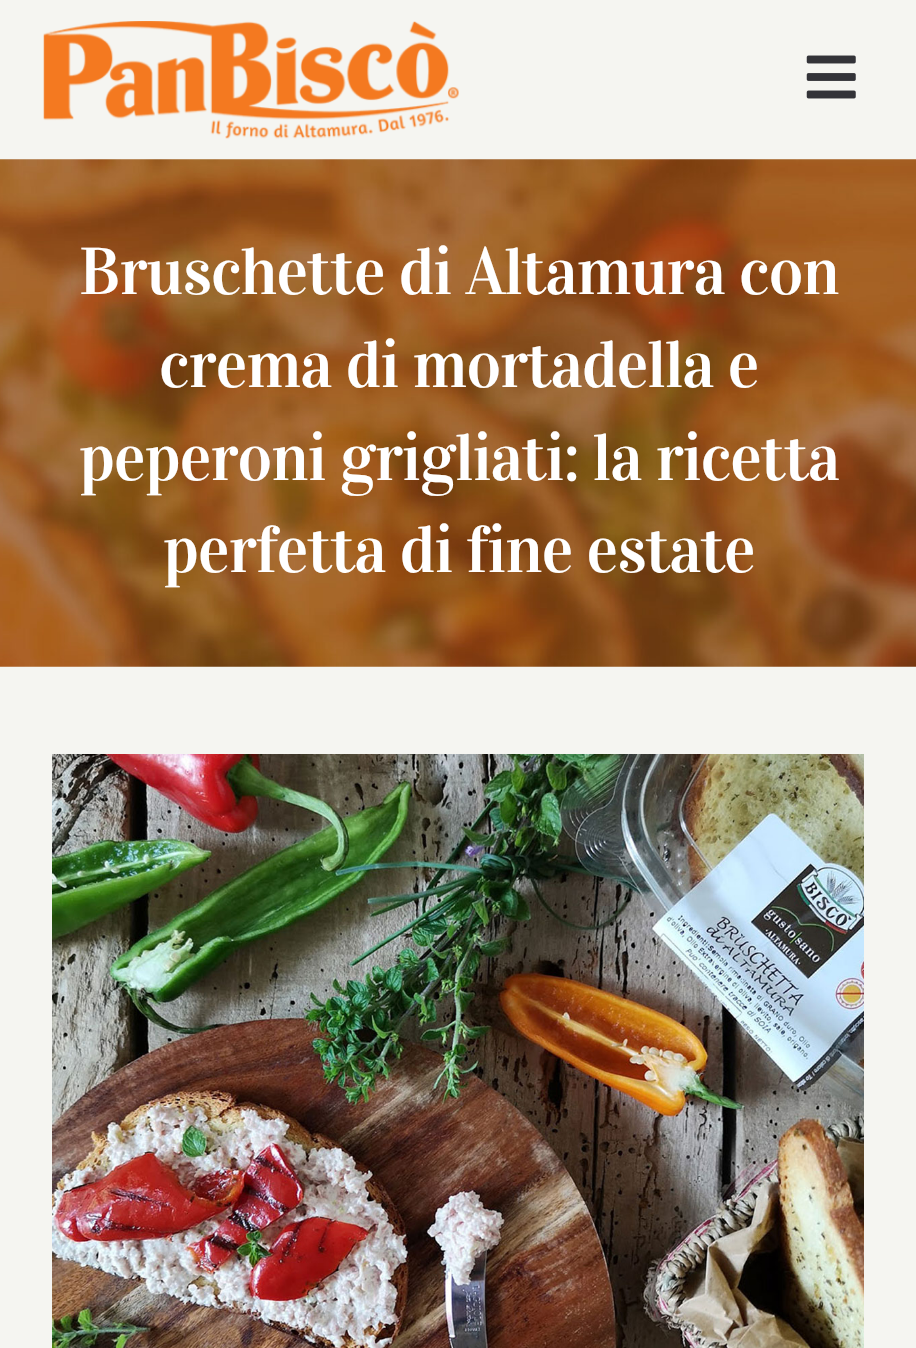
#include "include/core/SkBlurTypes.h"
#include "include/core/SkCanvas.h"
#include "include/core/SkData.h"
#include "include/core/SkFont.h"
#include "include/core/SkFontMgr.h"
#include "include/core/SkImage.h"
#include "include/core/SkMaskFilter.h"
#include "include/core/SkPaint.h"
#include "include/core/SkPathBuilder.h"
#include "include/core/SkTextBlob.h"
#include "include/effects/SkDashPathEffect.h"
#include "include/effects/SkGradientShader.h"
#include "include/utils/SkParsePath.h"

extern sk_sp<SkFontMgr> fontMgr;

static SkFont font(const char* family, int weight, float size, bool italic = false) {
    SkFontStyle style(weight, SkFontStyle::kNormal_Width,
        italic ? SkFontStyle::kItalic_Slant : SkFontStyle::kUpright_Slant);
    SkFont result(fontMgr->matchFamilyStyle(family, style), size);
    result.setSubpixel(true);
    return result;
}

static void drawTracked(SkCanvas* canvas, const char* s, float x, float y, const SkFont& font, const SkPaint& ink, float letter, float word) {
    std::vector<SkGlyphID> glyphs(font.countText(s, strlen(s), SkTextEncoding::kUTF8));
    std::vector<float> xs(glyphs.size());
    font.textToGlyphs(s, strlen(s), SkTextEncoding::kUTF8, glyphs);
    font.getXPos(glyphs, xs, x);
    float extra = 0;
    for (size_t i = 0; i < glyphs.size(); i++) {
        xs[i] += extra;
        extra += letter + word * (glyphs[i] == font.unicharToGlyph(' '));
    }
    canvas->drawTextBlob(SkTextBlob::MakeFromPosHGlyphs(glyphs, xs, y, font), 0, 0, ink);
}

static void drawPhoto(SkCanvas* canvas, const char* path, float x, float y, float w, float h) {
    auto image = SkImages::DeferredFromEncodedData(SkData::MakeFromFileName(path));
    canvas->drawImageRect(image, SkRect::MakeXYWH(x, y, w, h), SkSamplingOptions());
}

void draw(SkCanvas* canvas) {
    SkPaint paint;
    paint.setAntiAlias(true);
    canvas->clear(0xFFF5F5F1);
    drawPhoto(canvas, "assets/img1.png", 43, 21, 416, 118);
    drawPhoto(canvas, "assets/img2.png", 806, 55, 50, 44);
    drawPhoto(canvas, "assets/img3.png", 0, 159, 916, 508);
    SkFont font1 = font("Vidaloka", 400, 66.2f);
    paint.setColor(0xFFFFFFFF);
    drawTracked(canvas, "Bruschette di Altamura con", 79, 294, font1, paint, -1, 0);
    drawTracked(canvas, "crema di mortadella e", 159, 387, font1, paint, -1, 0);
    drawTracked(canvas, "peperoni grigliati: la ricetta", 79, 480, font1, paint, -1, 0);
    drawTracked(canvas, "perfetta di fine estate", 163, 572, font1, paint, -1, 0);
    drawPhoto(canvas, "assets/img4.png", 52, 754, 812, 594);
}
